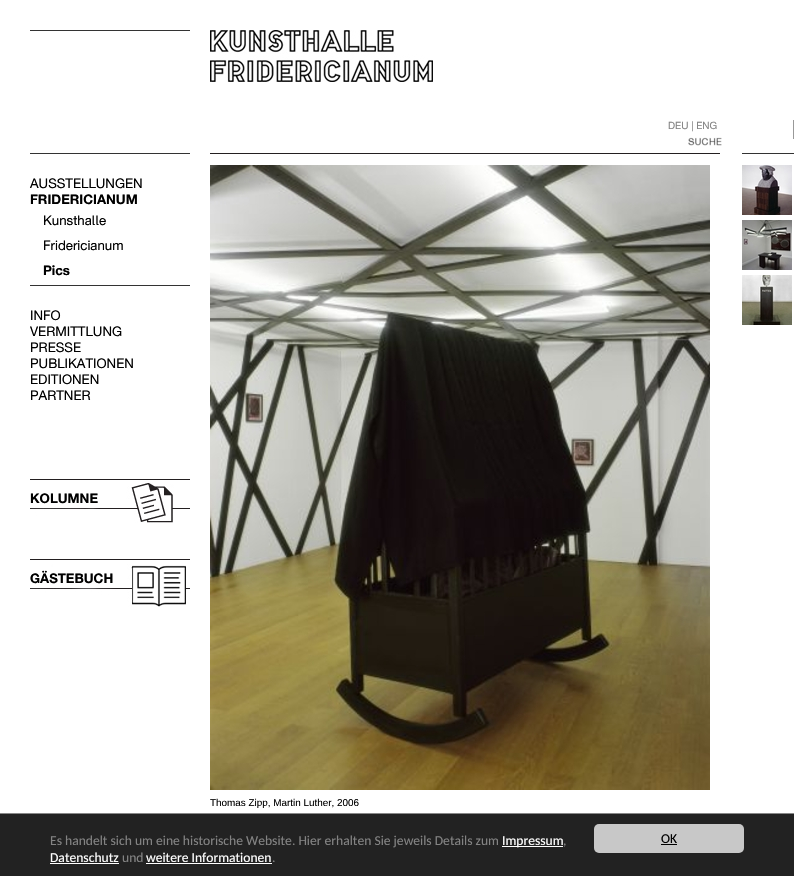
#include "include/core/SkBlurTypes.h"
#include "include/core/SkCanvas.h"
#include "include/core/SkData.h"
#include "include/core/SkFont.h"
#include "include/core/SkFontMgr.h"
#include "include/core/SkImage.h"
#include "include/core/SkMaskFilter.h"
#include "include/core/SkPaint.h"
#include "include/core/SkPathBuilder.h"
#include "include/core/SkTextBlob.h"
#include "include/effects/SkDashPathEffect.h"
#include "include/effects/SkGradientShader.h"
#include "include/utils/SkParsePath.h"

extern sk_sp<SkFontMgr> fontMgr;

static SkFont font(const char* family, int weight, float size, bool italic = false) {
    SkFontStyle style(weight, SkFontStyle::kNormal_Width,
        italic ? SkFontStyle::kItalic_Slant : SkFontStyle::kUpright_Slant);
    SkFont result(fontMgr->matchFamilyStyle(family, style), size);
    result.setSubpixel(true);
    return result;
}

static void drawLabel(SkCanvas* canvas, const char* s, float x, float y, const SkFont& font, SkColor color) {
    SkPaint ink(SkColor4f::FromColor(color));
    ink.setAntiAlias(true);
    canvas->drawString(s, x, y, font, ink);
}

static void fillRect(SkCanvas* canvas, float x, float y, float w, float h, SkColor color) {
    SkPaint ink(SkColor4f::FromColor(color));
    ink.setAntiAlias(true);
    canvas->drawRect(SkRect::MakeXYWH(x, y, w, h), ink);
}

static void fillRRect(SkCanvas* canvas, float x, float y, float w, float h, float radius, SkColor color) {
    SkPaint ink(SkColor4f::FromColor(color));
    ink.setAntiAlias(true);
    canvas->drawRoundRect(SkRect::MakeXYWH(x, y, w, h), radius, radius, ink);
}

static void drawPhoto(SkCanvas* canvas, const char* path, float x, float y, float w, float h) {
    auto image = SkImages::DeferredFromEncodedData(SkData::MakeFromFileName(path));
    canvas->drawImageRect(image, SkRect::MakeXYWH(x, y, w, h), SkSamplingOptions());
}

void draw(SkCanvas* canvas) {
    SkPaint paint;
    paint.setAntiAlias(true);
    canvas->clear(0xFFFFFFFF);
    fillRect(canvas, 30, 30, 160, 1, 0xFF333333);
    drawPhoto(canvas, "assets/img1.png", 210, 30, 223, 52);
    SkFont font1 = font("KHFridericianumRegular", 400, 10);
    drawLabel(canvas, "DEU | ENG", 668, 129, font1, 0xFF838383);
    drawPhoto(canvas, "assets/img2.png", 688, 137, 34, 9);
    paint.setStroke(true);
    paint.setStrokeWidth(1);
    paint.setColor(0xFF999999);
    canvas->drawRect(SkRect::MakeXYWH(793.5f, 120.5f, 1, 18), paint);
    fillRect(canvas, 30, 153, 160, 1, 0xFF333333);
    SkFont font2 = font("KHFridericianumRegular", 400, 13.25f);
    drawLabel(canvas, "AUSSTELLUNGEN", 30, 188, font2, 0xFF000000);
    SkFont font3 = font("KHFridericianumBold", 700, 13.25f);
    drawLabel(canvas, "FRIDERICIANUM", 30, 204, font3, 0xFF000000);
    drawLabel(canvas, "Kunsthalle", 43, 225, font2, 0xFF000000);
    drawLabel(canvas, "Fridericianum", 43, 250, font2, 0xFF000000);
    drawLabel(canvas, "Pics", 43, 275, font3, 0xFF000000);
    fillRect(canvas, 30, 285, 160, 1, 0xFF333333);
    drawLabel(canvas, "INFO", 30, 320, font2, 0xFF000000);
    drawLabel(canvas, "VERMITTLUNG", 30, 336, font2, 0xFF000000);
    drawLabel(canvas, "PRESSE", 30, 352, font2, 0xFF000000);
    drawLabel(canvas, "PUBLIKATIONEN", 30, 368, font2, 0xFF000000);
    drawLabel(canvas, "EDITIONEN", 30, 384, font2, 0xFF000000);
    drawLabel(canvas, "PARTNER", 30, 400, font2, 0xFF000000);
    drawPhoto(canvas, "assets/img3.png", 30, 479, 160, 44);
    drawLabel(canvas, "KOLUMNE", 30, 503, font3, 0xFF000000);
    drawPhoto(canvas, "assets/img4.png", 30, 559, 160, 48);
    drawLabel(canvas, "GÄSTEBUCH", 30, 583, font3, 0xFF000000);
    fillRect(canvas, 742, 153, 52, 1, 0xFF333333);
    drawPhoto(canvas, "assets/img5.png", 742, 165, 50, 50);
    drawPhoto(canvas, "assets/img6.png", 742, 220, 50, 50);
    drawPhoto(canvas, "assets/img7.png", 742, 275, 50, 50);
    fillRect(canvas, 210, 153, 510, 1, 0xFF231F20);
    drawPhoto(canvas, "assets/img8.png", 210, 165, 500, 625);
    SkFont font4 = font("Liberation Sans", 400, 9.9f);
    drawLabel(canvas, "Thomas Zipp, Martin Luther, 2006", 210, 806, font4, 0xFF000000);
    fillRect(canvas, 0, 814, 794, 62, 0xFF222222);
    fillRect(canvas, 0, 813, 794, 1, 0xFF888888);
    SkFont font5 = font("Carlito", 400, 13.6f);
    drawLabel(canvas, "Es handelt sich um eine historische Website. Hier erhalten Sie jeweils Details zum", 50, 845, font5, 0xFF838383);
    fillRect(canvas, 502, 846, 61, 1, 0xFFFFFFFF);
    drawLabel(canvas, "Impressum", 502, 845, font5, 0xFFFFFFFF);
    drawLabel(canvas, ",", 563, 845, font5, 0xFF838383);
    drawLabel(canvas, "Datenschutz", 50, 862, font5, 0xFFFFFFFF);
    fillRect(canvas, 50, 863, 69, 1, 0xFFFFFFFF);
    drawLabel(canvas, "und", 122, 862, font5, 0xFF838383);
    drawLabel(canvas, "weitere Informationen", 146, 862, font5, 0xFFFFFFFF);
    fillRect(canvas, 146, 863, 126, 1, 0xFFFFFFFF);
    drawLabel(canvas, ".", 272, 862, font5, 0xFF838383);
    fillRRect(canvas, 594, 824, 150, 29, 5, 0xFFC8C8C8);
    drawLabel(canvas, "OK", 661, 843, font5, 0xFF000000);
    fillRect(canvas, 661, 844, 16, 1, 0xFF000000);
}
